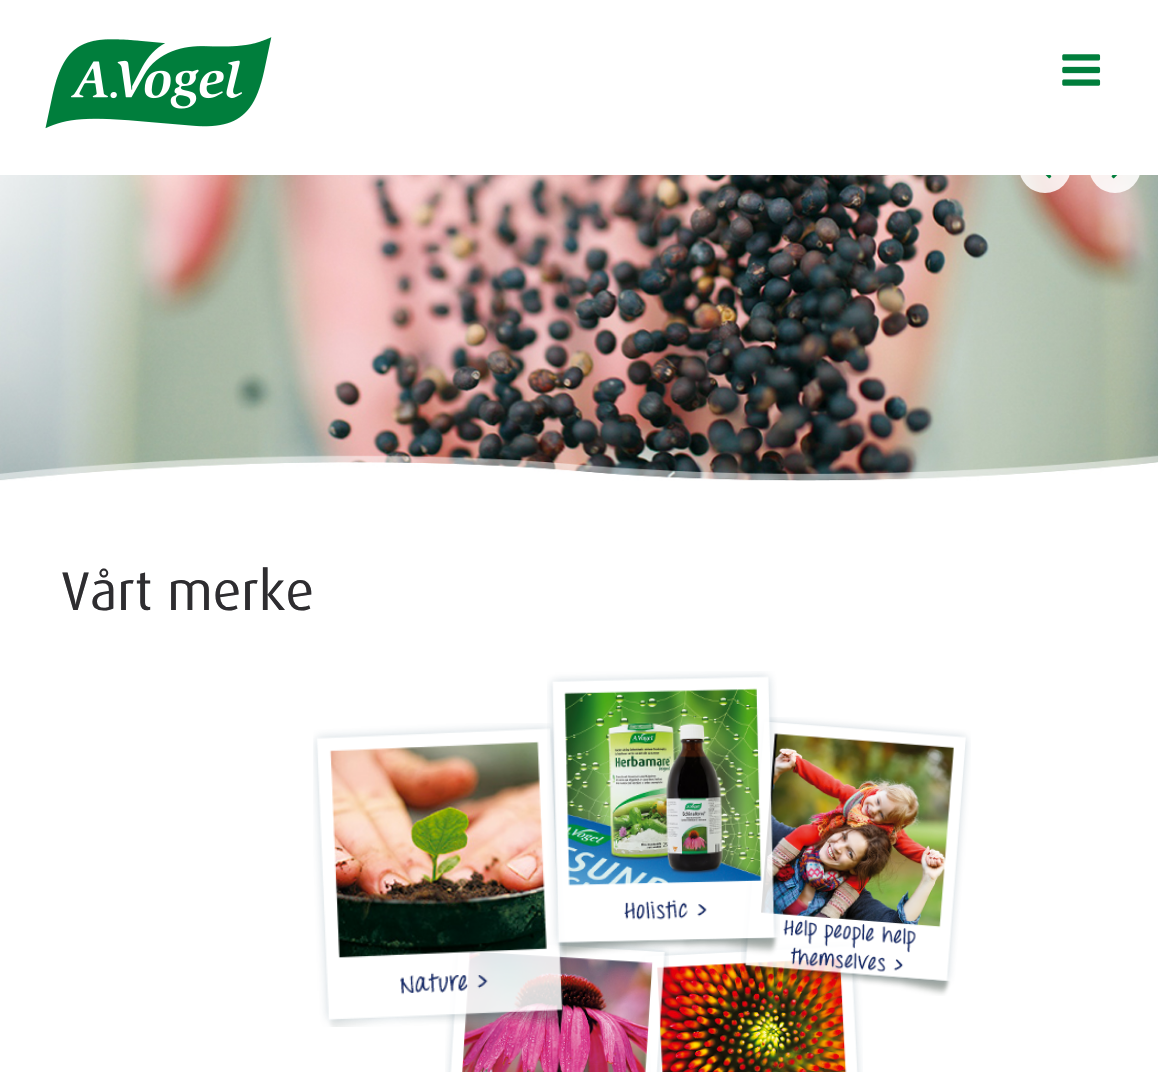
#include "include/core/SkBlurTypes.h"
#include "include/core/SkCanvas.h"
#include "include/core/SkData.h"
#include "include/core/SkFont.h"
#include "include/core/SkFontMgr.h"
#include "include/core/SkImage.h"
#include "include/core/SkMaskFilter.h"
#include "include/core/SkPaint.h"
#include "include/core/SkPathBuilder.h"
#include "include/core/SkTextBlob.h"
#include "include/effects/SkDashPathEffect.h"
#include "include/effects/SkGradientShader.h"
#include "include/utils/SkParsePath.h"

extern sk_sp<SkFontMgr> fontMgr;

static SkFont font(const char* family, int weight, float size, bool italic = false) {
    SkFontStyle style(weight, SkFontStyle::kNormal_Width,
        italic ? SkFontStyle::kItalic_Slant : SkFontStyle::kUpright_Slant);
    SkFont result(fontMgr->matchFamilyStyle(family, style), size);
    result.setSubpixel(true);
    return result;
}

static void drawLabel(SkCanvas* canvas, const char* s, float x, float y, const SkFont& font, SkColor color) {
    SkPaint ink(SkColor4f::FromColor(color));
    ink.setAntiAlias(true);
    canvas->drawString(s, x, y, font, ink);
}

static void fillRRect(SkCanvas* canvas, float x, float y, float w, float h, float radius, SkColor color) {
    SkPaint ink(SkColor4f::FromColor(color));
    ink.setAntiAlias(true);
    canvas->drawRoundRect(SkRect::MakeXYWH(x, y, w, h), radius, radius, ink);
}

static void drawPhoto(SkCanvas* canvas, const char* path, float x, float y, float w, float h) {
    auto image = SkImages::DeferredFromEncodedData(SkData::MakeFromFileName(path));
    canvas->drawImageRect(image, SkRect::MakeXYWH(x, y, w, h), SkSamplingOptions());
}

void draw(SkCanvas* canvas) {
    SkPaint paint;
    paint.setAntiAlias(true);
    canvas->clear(0xFFFFFFFF);
    drawPhoto(canvas, "assets/img1.png", 45, 37, 227, 92);
    drawPhoto(canvas, "assets/img2.png", 1062, 54, 39, 32);
    drawPhoto(canvas, "assets/img3.png", 0, 175, 1158, 306);
    fillRRect(canvas, 1019, 140, 52, 53, 26, 0xD9FFFFFF);
    drawPhoto(canvas, "assets/img4.png", 1045, 175, 7, 4);
    fillRRect(canvas, 1089, 140, 52, 53, 26, 0xD9FFFFFF);
    drawPhoto(canvas, "assets/img5.png", 1111, 175, 7, 4);
    SkFont font1 = font("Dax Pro", 400, 54.5f);
    drawLabel(canvas, "Vårt merke", 61, 610, font1, 0xFF2E2D30);
    drawPhoto(canvas, "assets/img10.png", 640, 941, 223, 131);
    drawPhoto(canvas, "assets/img9.png", 445, 939, 224, 133);
    drawPhoto(canvas, "assets/img6.png", 313, 723, 254, 304);
    drawPhoto(canvas, "assets/img8.png", 741, 717, 230, 279);
    drawPhoto(canvas, "assets/img7.png", 547, 671, 233, 287);
}
